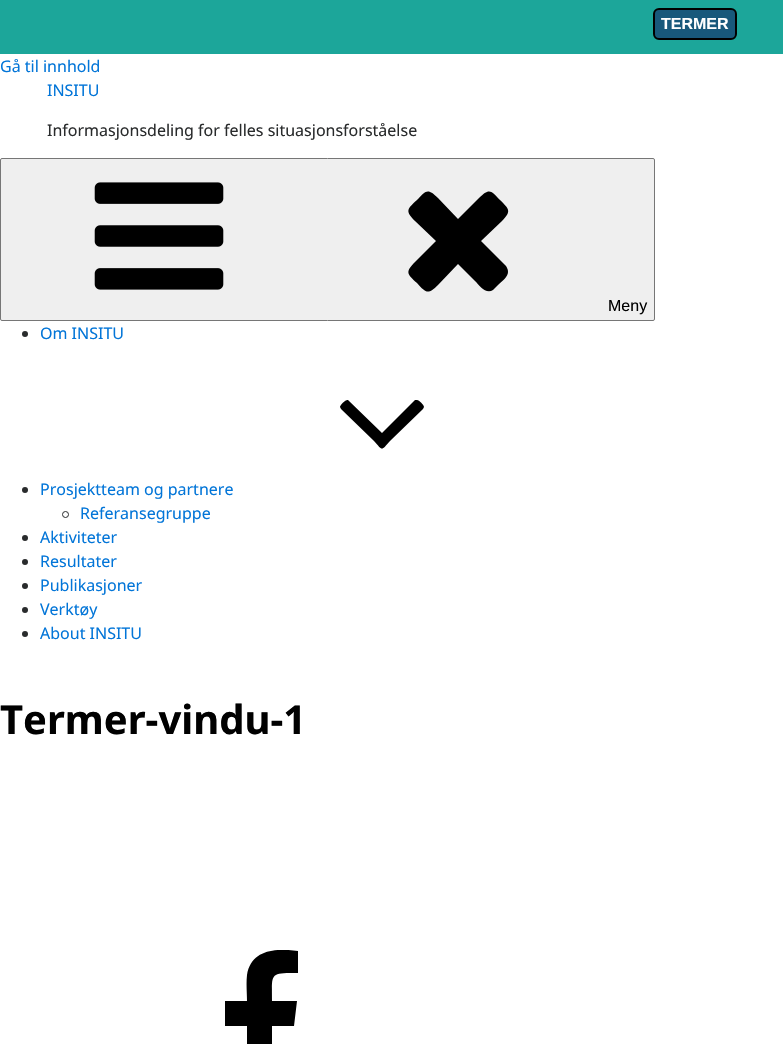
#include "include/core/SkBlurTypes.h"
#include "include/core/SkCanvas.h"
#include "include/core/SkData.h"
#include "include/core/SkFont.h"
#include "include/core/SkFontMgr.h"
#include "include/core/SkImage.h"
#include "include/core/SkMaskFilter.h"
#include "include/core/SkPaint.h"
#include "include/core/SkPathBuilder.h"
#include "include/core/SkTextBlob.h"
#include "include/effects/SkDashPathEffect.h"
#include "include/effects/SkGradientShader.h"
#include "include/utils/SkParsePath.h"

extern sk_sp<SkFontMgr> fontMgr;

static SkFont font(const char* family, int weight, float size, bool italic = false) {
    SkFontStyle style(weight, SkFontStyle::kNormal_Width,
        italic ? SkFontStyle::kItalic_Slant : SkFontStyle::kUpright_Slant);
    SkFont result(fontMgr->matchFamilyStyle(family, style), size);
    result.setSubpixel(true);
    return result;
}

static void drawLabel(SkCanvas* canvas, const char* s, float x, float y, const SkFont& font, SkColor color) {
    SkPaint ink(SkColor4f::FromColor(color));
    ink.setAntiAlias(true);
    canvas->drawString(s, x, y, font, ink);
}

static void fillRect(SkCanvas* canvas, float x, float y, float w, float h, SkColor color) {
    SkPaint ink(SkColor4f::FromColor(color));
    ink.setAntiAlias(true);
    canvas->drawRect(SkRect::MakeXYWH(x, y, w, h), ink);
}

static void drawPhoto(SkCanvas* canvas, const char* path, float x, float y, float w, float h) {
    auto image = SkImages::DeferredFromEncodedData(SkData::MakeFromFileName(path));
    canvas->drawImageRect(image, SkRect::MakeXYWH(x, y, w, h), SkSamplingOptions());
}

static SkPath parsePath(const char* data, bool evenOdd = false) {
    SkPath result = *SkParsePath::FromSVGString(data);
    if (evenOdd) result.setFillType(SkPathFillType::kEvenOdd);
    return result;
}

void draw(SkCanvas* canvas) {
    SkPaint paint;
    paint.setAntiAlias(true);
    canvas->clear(0xFFFFFFFF);
    fillRect(canvas, 0, 0, 783, 54, 0xFF1CA69A);
    paint.setColor(0xFF18587B);
    canvas->drawRoundRect(SkRect::MakeXYWH(654, 9, 82, 30), 5, 5, paint);
    paint.setStroke(true);
    paint.setStrokeWidth(2);
    paint.setColor(0xFF000000);
    canvas->drawRoundRect(SkRect::MakeXYWH(654, 9, 82, 30), 5, 5, paint);
    SkFont font1 = font("Liberation Sans", 700, 16);
    drawLabel(canvas, "TERMER", 661, 29, font1, 0xFFFFFFFF);
    SkFont font2 = font("Noto Sans", 400, 16);
    drawLabel(canvas, "Gå til innhold", 0, 72, font2, 0xFF0275D8);
    drawLabel(canvas, "INSITU", 47, 96, font2, 0xFF0275D8);
    drawLabel(canvas, "Informasjonsdeling for felles situasjonsforståelse", 47, 136, font2, 0xFF292B2C);
    paint.setStroke(false);
    paint.setColor(0xFFEFEFEF);
    canvas->drawRoundRect(SkRect::MakeXYWH(0.5f, 158.5f, 654, 162), 1.5f, 1.5f, paint);
    paint.setStroke(true);
    paint.setStrokeWidth(1);
    paint.setColor(0xFF767676);
    canvas->drawRoundRect(SkRect::MakeXYWH(0.5f, 158.5f, 654, 162), 1.5f, 1.5f, paint);
    drawPhoto(canvas, "assets/img1.png", 94, 182, 130, 108);
    paint.setStroke(false);
    paint.setColor(0xFF000000);
    canvas->drawPath(parsePath("M508 272C508 277 502 281 498 285L493 290C486 295 479 285 475 281L458 264L438 285C428 295 426 293 417 283C407 274 405 272 415 262L436 241L415 221C405 211 407 209 417 200C426 190 428 188 438 198L458 219L479 198C489 188 491 190 500 200C509 209 512 211 502 221L481 241L506 266C507 268 508 269 508 272Z"), paint);
    SkFont font3 = font("Liberation Sans", 400, 16);
    drawLabel(canvas, "Meny", 608, 311, font3, 0xFF000000);
    paint.setColor(0xFF292B2C);
    canvas->drawCircle(25, 334, 3, paint);
    drawLabel(canvas, "Om INSITU", 40, 339, font2, 0xFF0275D8);
    canvas->drawCircle(25, 490, 3, paint);
    drawLabel(canvas, "Prosjektteam og partnere", 40, 495, font2, 0xFF0275D8);
    paint.setColor(0xFF000000);
    canvas->drawPath(parsePath("M424 407L423 409L390 441C381 451 383 451 374 441L341 409L340 407C340 405 346 399 348 400L382 433L415 400H417C419 400 424 405 424 407Z"), paint);
    paint.setStroke(true);
    paint.setColor(0xFF292B2C);
    canvas->drawCircle(65.5f, 514.5f, 3, paint);
    drawLabel(canvas, "Referansegruppe", 80, 519, font2, 0xFF0275D8);
    paint.setStroke(false);
    canvas->drawCircle(25, 538, 3, paint);
    drawLabel(canvas, "Aktiviteter", 40, 543, font2, 0xFF0275D8);
    canvas->drawCircle(25, 562, 3, paint);
    drawLabel(canvas, "Resultater", 40, 567, font2, 0xFF0275D8);
    canvas->drawCircle(25, 586, 3, paint);
    drawLabel(canvas, "Publikasjoner", 40, 591, font2, 0xFF0275D8);
    canvas->drawCircle(25, 610, 3, paint);
    drawLabel(canvas, "Verktøy", 40, 615, font2, 0xFF0275D8);
    canvas->drawCircle(25, 634, 3, paint);
    drawLabel(canvas, "About INSITU", 40, 639, font2, 0xFF0275D8);
    SkFont font4 = font("Noto Sans", 700, 40);
    drawLabel(canvas, "Termer-vindu-1", 0, 734, font4, 0xFF000000);
    canvas->save();
    canvas->clipRect(SkRect::MakeXYWH(112, 950, 300, 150));
    paint.setColor(0xFF000000);
    canvas->drawPath(parsePath("M298 951V973C269 973 272 973 272 1001H297L294 1026H272V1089H247V1026H225V1001H247C247 993 246 984 247 975C251 949 277 948 298 951Z"), paint);
    canvas->restore();
}
